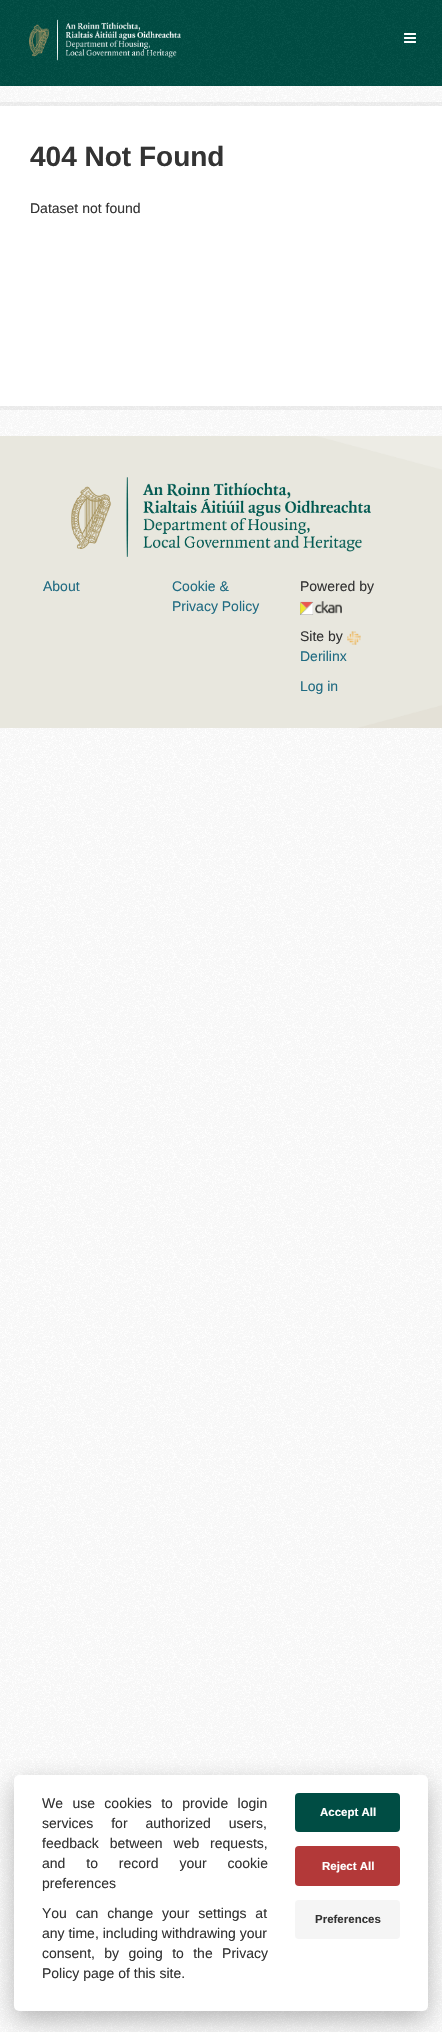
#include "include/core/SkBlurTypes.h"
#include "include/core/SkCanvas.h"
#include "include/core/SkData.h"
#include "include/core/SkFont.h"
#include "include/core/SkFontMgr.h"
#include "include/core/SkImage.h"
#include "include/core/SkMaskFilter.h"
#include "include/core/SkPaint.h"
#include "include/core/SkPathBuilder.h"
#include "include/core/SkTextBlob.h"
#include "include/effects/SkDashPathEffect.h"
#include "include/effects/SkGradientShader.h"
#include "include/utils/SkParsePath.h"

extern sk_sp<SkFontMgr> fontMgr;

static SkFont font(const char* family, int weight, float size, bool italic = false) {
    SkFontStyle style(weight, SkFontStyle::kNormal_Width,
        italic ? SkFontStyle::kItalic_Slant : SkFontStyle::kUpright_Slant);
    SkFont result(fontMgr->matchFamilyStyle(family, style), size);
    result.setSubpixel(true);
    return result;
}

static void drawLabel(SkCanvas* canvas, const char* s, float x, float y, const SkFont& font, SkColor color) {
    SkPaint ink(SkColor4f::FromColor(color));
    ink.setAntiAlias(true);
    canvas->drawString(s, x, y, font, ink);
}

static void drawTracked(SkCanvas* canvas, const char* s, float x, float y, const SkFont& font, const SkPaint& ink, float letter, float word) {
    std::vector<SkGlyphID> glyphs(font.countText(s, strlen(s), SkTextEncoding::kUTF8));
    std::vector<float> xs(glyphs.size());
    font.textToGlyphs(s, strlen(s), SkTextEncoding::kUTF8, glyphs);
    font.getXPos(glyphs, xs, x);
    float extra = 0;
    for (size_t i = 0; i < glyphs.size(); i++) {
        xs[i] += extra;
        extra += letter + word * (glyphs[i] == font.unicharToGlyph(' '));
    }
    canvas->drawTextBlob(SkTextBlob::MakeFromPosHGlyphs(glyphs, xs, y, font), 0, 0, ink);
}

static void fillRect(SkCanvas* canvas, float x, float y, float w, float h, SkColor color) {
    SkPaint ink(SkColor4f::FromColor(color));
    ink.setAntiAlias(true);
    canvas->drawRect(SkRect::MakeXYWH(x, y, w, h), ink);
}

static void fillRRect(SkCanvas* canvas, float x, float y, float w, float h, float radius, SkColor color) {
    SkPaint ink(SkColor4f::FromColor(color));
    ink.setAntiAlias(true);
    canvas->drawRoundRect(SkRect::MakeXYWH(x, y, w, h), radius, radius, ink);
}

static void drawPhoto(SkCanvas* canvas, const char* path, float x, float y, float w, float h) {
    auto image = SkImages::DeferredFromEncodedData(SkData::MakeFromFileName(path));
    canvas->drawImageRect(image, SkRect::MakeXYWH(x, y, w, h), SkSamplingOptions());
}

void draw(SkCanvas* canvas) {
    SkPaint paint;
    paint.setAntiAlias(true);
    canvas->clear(0xFFFFFFFF);
    drawPhoto(canvas, "assets/img1.png", 0, 86, 442, 1946);
    fillRect(canvas, 0, 0, 442, 86, 0xFF004D44);
    drawPhoto(canvas, "assets/img2.png", 0, 0, 442, 86);
    drawPhoto(canvas, "assets/img3.png", 29, 19, 152, 42);
    drawPhoto(canvas, "assets/img4.png", 404, 33, 12, 10);
    paint.setStroke(true);
    paint.setStrokeWidth(4);
    paint.setColor(0x0D000000);
    canvas->drawRect(SkRect::MakeXYWH(-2, 104, 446, 304), paint);
    fillRect(canvas, 0, 106, 442, 300, 0xFFFFFFFF);
    SkFont font1 = font("Liberation Sans", 700, 28);
    drawLabel(canvas, "404 Not Found", 30, 166, font1, 0xFF333333);
    SkFont font2 = font("Liberation Sans", 400, 14);
    drawLabel(canvas, "Dataset not found", 30, 213, font2, 0xFF333333);
    drawPhoto(canvas, "assets/img5.png", 0, 436, 442, 292);
    drawPhoto(canvas, "assets/img6.png", 71, 477, 300, 80);
    drawLabel(canvas, "About", 43, 591, font2, 0xFF206B82);
    drawLabel(canvas, "Cookie &", 172, 591, font2, 0xFF206B82);
    drawLabel(canvas, "Privacy Policy", 172, 611, font2, 0xFF206B82);
    drawLabel(canvas, "Powered by", 300, 591, font2, 0xFF333333);
    drawPhoto(canvas, "assets/img7.png", 300, 601, 42, 14);
    drawLabel(canvas, "Site by", 300, 641, font2, 0xFF333333);
    drawPhoto(canvas, "assets/img8.png", 347, 631, 14, 14);
    drawLabel(canvas, "Derilinx", 300, 661, font2, 0xFF206B82);
    drawLabel(canvas, "Log in", 300, 691, font2, 0xFF206B82);
    paint.setStroke(false);
    paint.setColor(0x47020203);
    paint.setMaskFilter(SkMaskFilter::MakeBlur(kNormal_SkBlurStyle, 13));
    canvas->drawRoundRect(SkRect::MakeXYWH(14, 1784, 414, 236), 5, 5, paint);
    paint.setMaskFilter(nullptr);
    fillRRect(canvas, 14, 1775, 414, 236, 5, 0xFFFFFFFF);
    paint.setColor(0xFF333333);
    drawTracked(canvas, "We use cookies to provide login", 42, 1808, font2, paint, 0, 5.5f);
    drawTracked(canvas, "services for authorized users,", 42, 1828, font2, paint, 0, 14);
    drawTracked(canvas, "feedback between web requests,", 42, 1848, font2, paint, 0, 7);
    drawTracked(canvas, "and to record your cookie", 42, 1868, font2, paint, 0, 17);
    drawLabel(canvas, "preferences", 42, 1888, font2, 0xFF333333);
    drawTracked(canvas, "You can change your settings at", 42, 1918, font2, paint, 0, 5);
    drawLabel(canvas, "any time, including withdrawing your", 42, 1938, font2, 0xFF333333);
    drawTracked(canvas, "consent, by going to the Privacy", 42, 1958, font2, paint, 0, 5.5f);
    drawLabel(canvas, "Policy page of this site.", 42, 1978, font2, 0xFF333333);
    fillRRect(canvas, 295, 1793, 105, 39, 4, 0xFF004D44);
    SkFont font3 = font("Liberation Sans", 700, 11.5f);
    drawLabel(canvas, "Accept All", 320, 1816, font3, 0xFFFFFFFF);
    fillRRect(canvas, 295, 1846, 105, 40, 4, 0xFFB33939);
    drawLabel(canvas, "Reject All", 322, 1870, font3, 0xFFFFFFFF);
    fillRRect(canvas, 295, 1900, 105, 39, 4, 0xFFF5F5F5);
    drawLabel(canvas, "Preferences", 315, 1923, font3, 0xFF333333);
}
